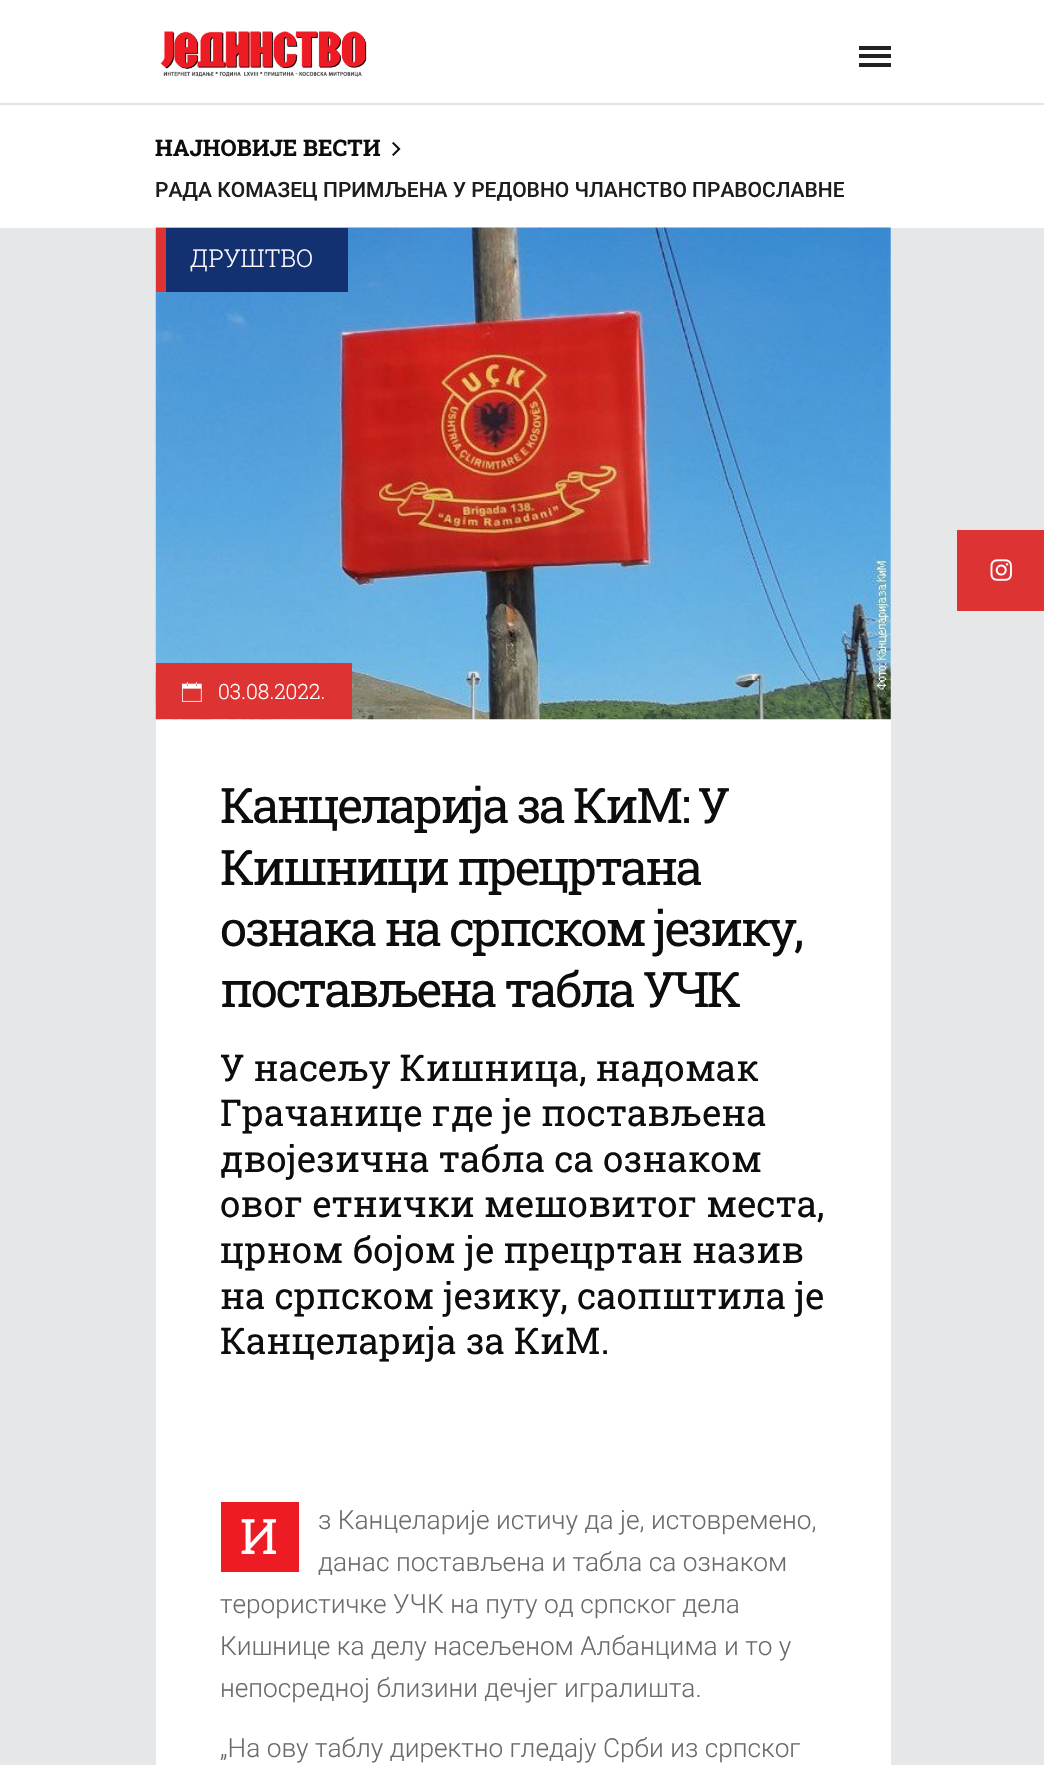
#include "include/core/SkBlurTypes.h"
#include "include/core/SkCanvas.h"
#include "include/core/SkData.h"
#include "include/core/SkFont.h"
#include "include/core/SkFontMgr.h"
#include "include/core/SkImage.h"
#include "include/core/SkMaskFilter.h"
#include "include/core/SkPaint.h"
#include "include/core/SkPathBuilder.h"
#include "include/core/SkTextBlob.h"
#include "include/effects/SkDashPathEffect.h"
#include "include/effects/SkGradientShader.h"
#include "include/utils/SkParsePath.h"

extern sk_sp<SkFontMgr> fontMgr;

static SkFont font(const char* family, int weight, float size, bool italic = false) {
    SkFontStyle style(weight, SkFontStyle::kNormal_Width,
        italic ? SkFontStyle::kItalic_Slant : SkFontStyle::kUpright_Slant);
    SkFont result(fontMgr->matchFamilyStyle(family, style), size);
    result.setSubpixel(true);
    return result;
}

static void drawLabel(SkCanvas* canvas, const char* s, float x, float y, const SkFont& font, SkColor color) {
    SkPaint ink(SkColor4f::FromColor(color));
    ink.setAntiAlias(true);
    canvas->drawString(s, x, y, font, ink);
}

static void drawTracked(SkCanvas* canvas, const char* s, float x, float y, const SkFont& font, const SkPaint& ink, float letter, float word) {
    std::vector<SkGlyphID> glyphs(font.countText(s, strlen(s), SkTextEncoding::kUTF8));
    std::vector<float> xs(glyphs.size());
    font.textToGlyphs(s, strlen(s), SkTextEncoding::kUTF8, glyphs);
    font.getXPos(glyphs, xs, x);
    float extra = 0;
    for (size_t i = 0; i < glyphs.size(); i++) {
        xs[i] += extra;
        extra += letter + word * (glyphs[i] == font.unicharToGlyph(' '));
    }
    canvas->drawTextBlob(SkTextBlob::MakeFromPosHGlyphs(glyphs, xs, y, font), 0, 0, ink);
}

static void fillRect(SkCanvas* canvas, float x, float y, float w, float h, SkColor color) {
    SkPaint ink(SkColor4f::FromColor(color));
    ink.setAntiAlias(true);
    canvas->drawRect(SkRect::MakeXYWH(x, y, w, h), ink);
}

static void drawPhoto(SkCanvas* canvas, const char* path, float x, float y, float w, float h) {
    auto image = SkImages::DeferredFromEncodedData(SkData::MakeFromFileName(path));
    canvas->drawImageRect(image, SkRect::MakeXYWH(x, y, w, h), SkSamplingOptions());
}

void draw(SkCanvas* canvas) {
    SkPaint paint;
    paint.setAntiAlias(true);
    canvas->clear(0xFFE6E7E8);
    fillRect(canvas, 0, 0, 1044, 103, 0xFFFFFFFF);
    fillRect(canvas, 0, 103, 1044, 2, 0xFFE4E4E4);
    drawPhoto(canvas, "assets/img1.png", 160, 31, 207, 46);
    fillRect(canvas, 859, 46, 32, 4, 0xFF222222);
    fillRect(canvas, 859, 54, 32, 4, 0xFF222222);
    fillRect(canvas, 859, 63, 32, 4, 0xFF222222);
    fillRect(canvas, 0, 105, 1044, 123, 0xFFFFFFFF);
    SkFont font1 = font("Roboto Slab", 700, 22.75f);
    drawLabel(canvas, "НАЈНОВИЈЕ ВЕСТИ", 155, 156, font1, 0xFF0D0D0D);
    drawPhoto(canvas, "assets/img2.png", 392, 142, 9, 14);
    SkFont font2 = font("Roboto", 500, 21);
    drawLabel(canvas, "РАДА КОМАЗЕЦ ПРИМЉЕНА У РЕДОВНО ЧЛАНСТВО ПРАВОСЛАВНЕ", 155, 197, font2, 0xFF1D1D1D);
    fillRect(canvas, 156, 228, 735, 1537, 0xFFFFFFFF);
    drawPhoto(canvas, "assets/img3.png", 155, 227, 736, 493);
    fillRect(canvas, 166, 228, 182, 64, 0xFF133070);
    fillRect(canvas, 156, 228, 10, 64, 0xFFDD3333);
    SkFont font3 = font("Roboto Slab", 300, 24.5f);
    drawLabel(canvas, "ДРУШТВО", 190, 267, font3, 0xFFFFFFFF);
    fillRect(canvas, 156, 663, 196, 56, 0xFFDD3333);
    drawPhoto(canvas, "assets/img4.png", 182, 682, 20, 20);
    SkFont font4 = font("Roboto Slab", 300, 21);
    drawLabel(canvas, "03.08.2022.", 218, 699, font4, 0xFFFFFFFF);
    SkFont font5 = font("Roboto Slab", 400, 49);
    paint.setColor(0xFF0D0D0D);
    drawTracked(canvas, "Канцеларија за КиМ: У", 220, 823, font5, paint, -2.6f, 0);
    drawTracked(canvas, "Кишници прецртана", 220, 885, font5, paint, -2.6f, 0);
    drawTracked(canvas, "ознака на српском језику,", 220, 946, font5, paint, -2.6f, 0);
    drawTracked(canvas, "постављена табла УЧК", 220, 1007, font5, paint, -2.6f, 0);
    SkFont font6 = font("Roboto Slab", 400, 36.75f);
    drawLabel(canvas, "У насељу Кишница, надомак", 220, 1081, font6, 0xFF0D0D0D);
    drawLabel(canvas, "Грачанице где је постављена", 220, 1126, font6, 0xFF0D0D0D);
    drawLabel(canvas, "двојезична табла са ознаком", 220, 1172, font6, 0xFF0D0D0D);
    drawLabel(canvas, "овог етнички мешовитог места,", 220, 1217, font6, 0xFF0D0D0D);
    drawLabel(canvas, "црном бојом је прецртан назив", 220, 1263, font6, 0xFF0D0D0D);
    drawLabel(canvas, "на српском језику, саопштила је", 220, 1309, font6, 0xFF0D0D0D);
    drawLabel(canvas, "Канцеларија за КиМ.", 220, 1354, font6, 0xFF0D0D0D);
    fillRect(canvas, 221, 1502, 78, 70, 0xFFED1C24);
    drawLabel(canvas, "И", 240, 1554, font5, 0xFFFFFFFF);
    SkFont font7 = font("Roboto", 300, 26.25f);
    drawLabel(canvas, "з Канцеларије истичу да је, истовремено,", 318, 1529, font7, 0xFF6C6B6B);
    drawLabel(canvas, "данас постављена и табла са ознаком", 318, 1571, font7, 0xFF6C6B6B);
    drawLabel(canvas, "терористичке УЧК на путу од српског дела", 220, 1613, font7, 0xFF6C6B6B);
    drawLabel(canvas, "Кишнице ка делу насељеном Албанцима и то у", 220, 1655, font7, 0xFF6C6B6B);
    drawLabel(canvas, "непосредној близини дечјег игралишта.", 220, 1697, font7, 0xFF6C6B6B);
    drawLabel(canvas, "„На ову таблу директно гледају Срби из српског", 220, 1757, font7, 0xFF6C6B6B);
    fillRect(canvas, 957, 530, 87, 81, 0xFFDD3333);
    drawPhoto(canvas, "assets/img5.png", 990, 559, 22, 22);
}
